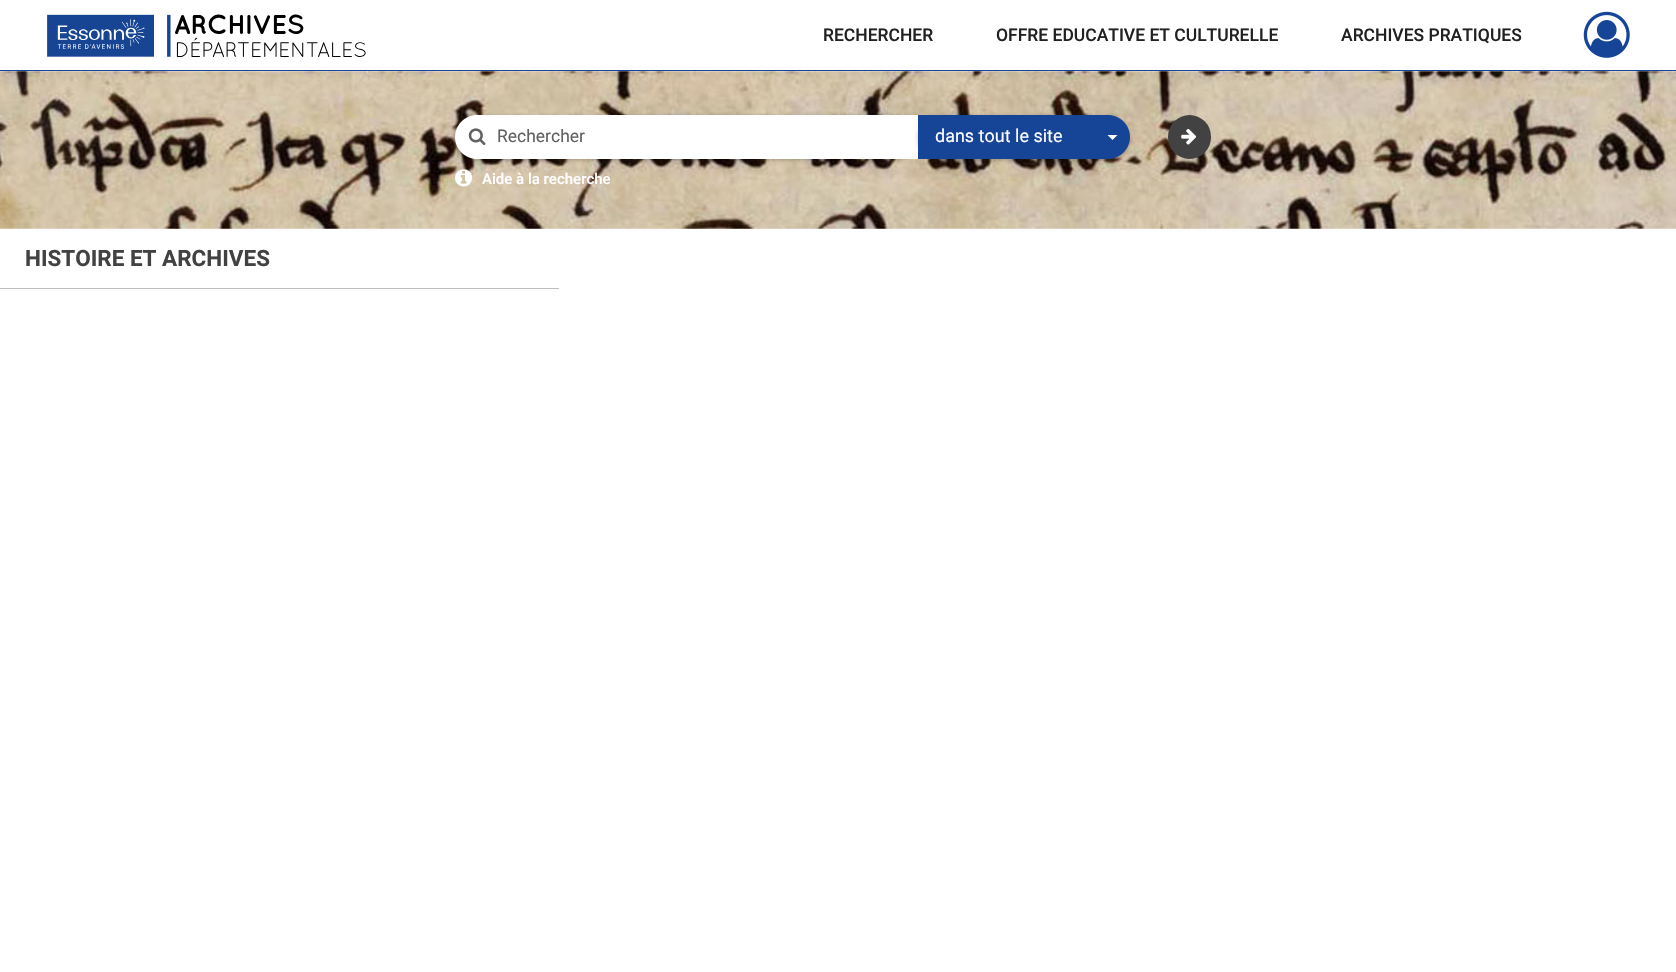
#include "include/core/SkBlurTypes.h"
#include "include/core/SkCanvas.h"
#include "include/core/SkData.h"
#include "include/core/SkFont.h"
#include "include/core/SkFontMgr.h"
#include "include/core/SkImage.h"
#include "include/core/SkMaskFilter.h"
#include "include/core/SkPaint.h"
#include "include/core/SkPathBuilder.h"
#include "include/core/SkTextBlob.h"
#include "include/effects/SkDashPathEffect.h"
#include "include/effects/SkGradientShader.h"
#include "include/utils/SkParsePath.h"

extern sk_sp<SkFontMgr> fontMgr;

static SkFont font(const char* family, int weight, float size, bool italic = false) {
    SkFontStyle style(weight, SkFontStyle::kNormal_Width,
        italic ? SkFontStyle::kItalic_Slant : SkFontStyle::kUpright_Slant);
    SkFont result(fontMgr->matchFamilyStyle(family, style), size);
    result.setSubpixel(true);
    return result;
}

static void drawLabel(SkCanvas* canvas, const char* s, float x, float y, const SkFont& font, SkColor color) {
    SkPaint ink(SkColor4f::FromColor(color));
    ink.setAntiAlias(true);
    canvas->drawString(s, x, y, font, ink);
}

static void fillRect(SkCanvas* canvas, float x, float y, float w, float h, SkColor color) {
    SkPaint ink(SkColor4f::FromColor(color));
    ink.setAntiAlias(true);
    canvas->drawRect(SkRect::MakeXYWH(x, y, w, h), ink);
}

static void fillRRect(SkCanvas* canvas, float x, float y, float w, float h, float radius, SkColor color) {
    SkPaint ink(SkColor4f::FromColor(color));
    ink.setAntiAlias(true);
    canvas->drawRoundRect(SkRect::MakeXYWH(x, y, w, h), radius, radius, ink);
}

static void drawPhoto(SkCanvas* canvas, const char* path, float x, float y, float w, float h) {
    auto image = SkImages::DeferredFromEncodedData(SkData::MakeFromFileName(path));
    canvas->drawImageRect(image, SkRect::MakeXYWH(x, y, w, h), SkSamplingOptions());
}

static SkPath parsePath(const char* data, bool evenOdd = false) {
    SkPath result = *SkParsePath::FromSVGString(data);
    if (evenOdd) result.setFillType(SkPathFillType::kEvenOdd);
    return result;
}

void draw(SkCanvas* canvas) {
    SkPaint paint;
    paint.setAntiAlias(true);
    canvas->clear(0xFFFFFFFF);
    fillRect(canvas, 0, 70, 1676, 1, 0xFF164496);
    drawPhoto(canvas, "assets/img1.png", 47, 14, 319, 43);
    SkFont font1 = font("Roboto", 500, 17.5f);
    drawLabel(canvas, "RECHERCHER", 823, 41, font1, 0xFF212121);
    drawLabel(canvas, "OFFRE EDUCATIVE ET CULTURELLE", 996, 41, font1, 0xFF212121);
    drawLabel(canvas, "ARCHIVES PRATIQUES", 1341, 41, font1, 0xFF212121);
    drawPhoto(canvas, "assets/img2.png", 1583, 11, 47, 47);
    drawPhoto(canvas, "assets/img3.png", 0, 71, 1676, 158);
    paint.setColor(0x40000000);
    paint.setMaskFilter(SkMaskFilter::MakeBlur(kNormal_SkBlurStyle, 2));
    canvas->drawRoundRect(SkRect::MakeXYWH(455, 116, 463, 44), 22, 22, paint);
    paint.setMaskFilter(nullptr);
    paint.setColor(0xFFFFFFFF);
    canvas->drawPath(parsePath("M477 115H918V159H477C465 159 455 149 455 137C455 125 465 115 477 115Z"), paint);
    drawPhoto(canvas, "assets/img4.png", 468, 128, 18, 17);
    SkFont font2 = font("Roboto", 400, 17.5f);
    drawLabel(canvas, "Rechercher", 497, 142, font2, 0xFF616161);
    paint.setColor(0x40000000);
    paint.setMaskFilter(SkMaskFilter::MakeBlur(kNormal_SkBlurStyle, 2));
    canvas->drawRoundRect(SkRect::MakeXYWH(918, 116, 212, 44), 22, 22, paint);
    paint.setMaskFilter(nullptr);
    paint.setColor(0xFF164496);
    canvas->drawPath(parsePath("M918 115H1108C1120 115 1130 125 1130 137C1130 149 1120 159 1108 159H918Z"), paint);
    SkFont font3 = font("Roboto", 400, 18);
    drawLabel(canvas, "dans tout le site", 935, 142, font3, 0xFFFFFFFF);
    paint.setColor(0xFFFFFFFF);
    canvas->drawPath(parsePath("M1107.5 135H1117.5L1112.5 140Z"), paint);
    fillRRect(canvas, 1168, 115, 43, 44, 21.5f, 0xFF424242);
    drawPhoto(canvas, "assets/img5.png", 1181, 128, 15, 17);
    drawPhoto(canvas, "assets/img6.png", 455, 169, 18, 18);
    SkFont font4 = font("Roboto", 500, 15);
    drawLabel(canvas, "Aide à la recherche", 482, 184, font4, 0xFFFFFFFF);
    fillRect(canvas, 0, 288, 559, 1, 0xFFBDBDBD);
    SkFont font5 = font("Roboto", 700, 22.5f);
    drawLabel(canvas, "HISTOIRE ET ARCHIVES", 25, 266, font5, 0xFF424242);
}
